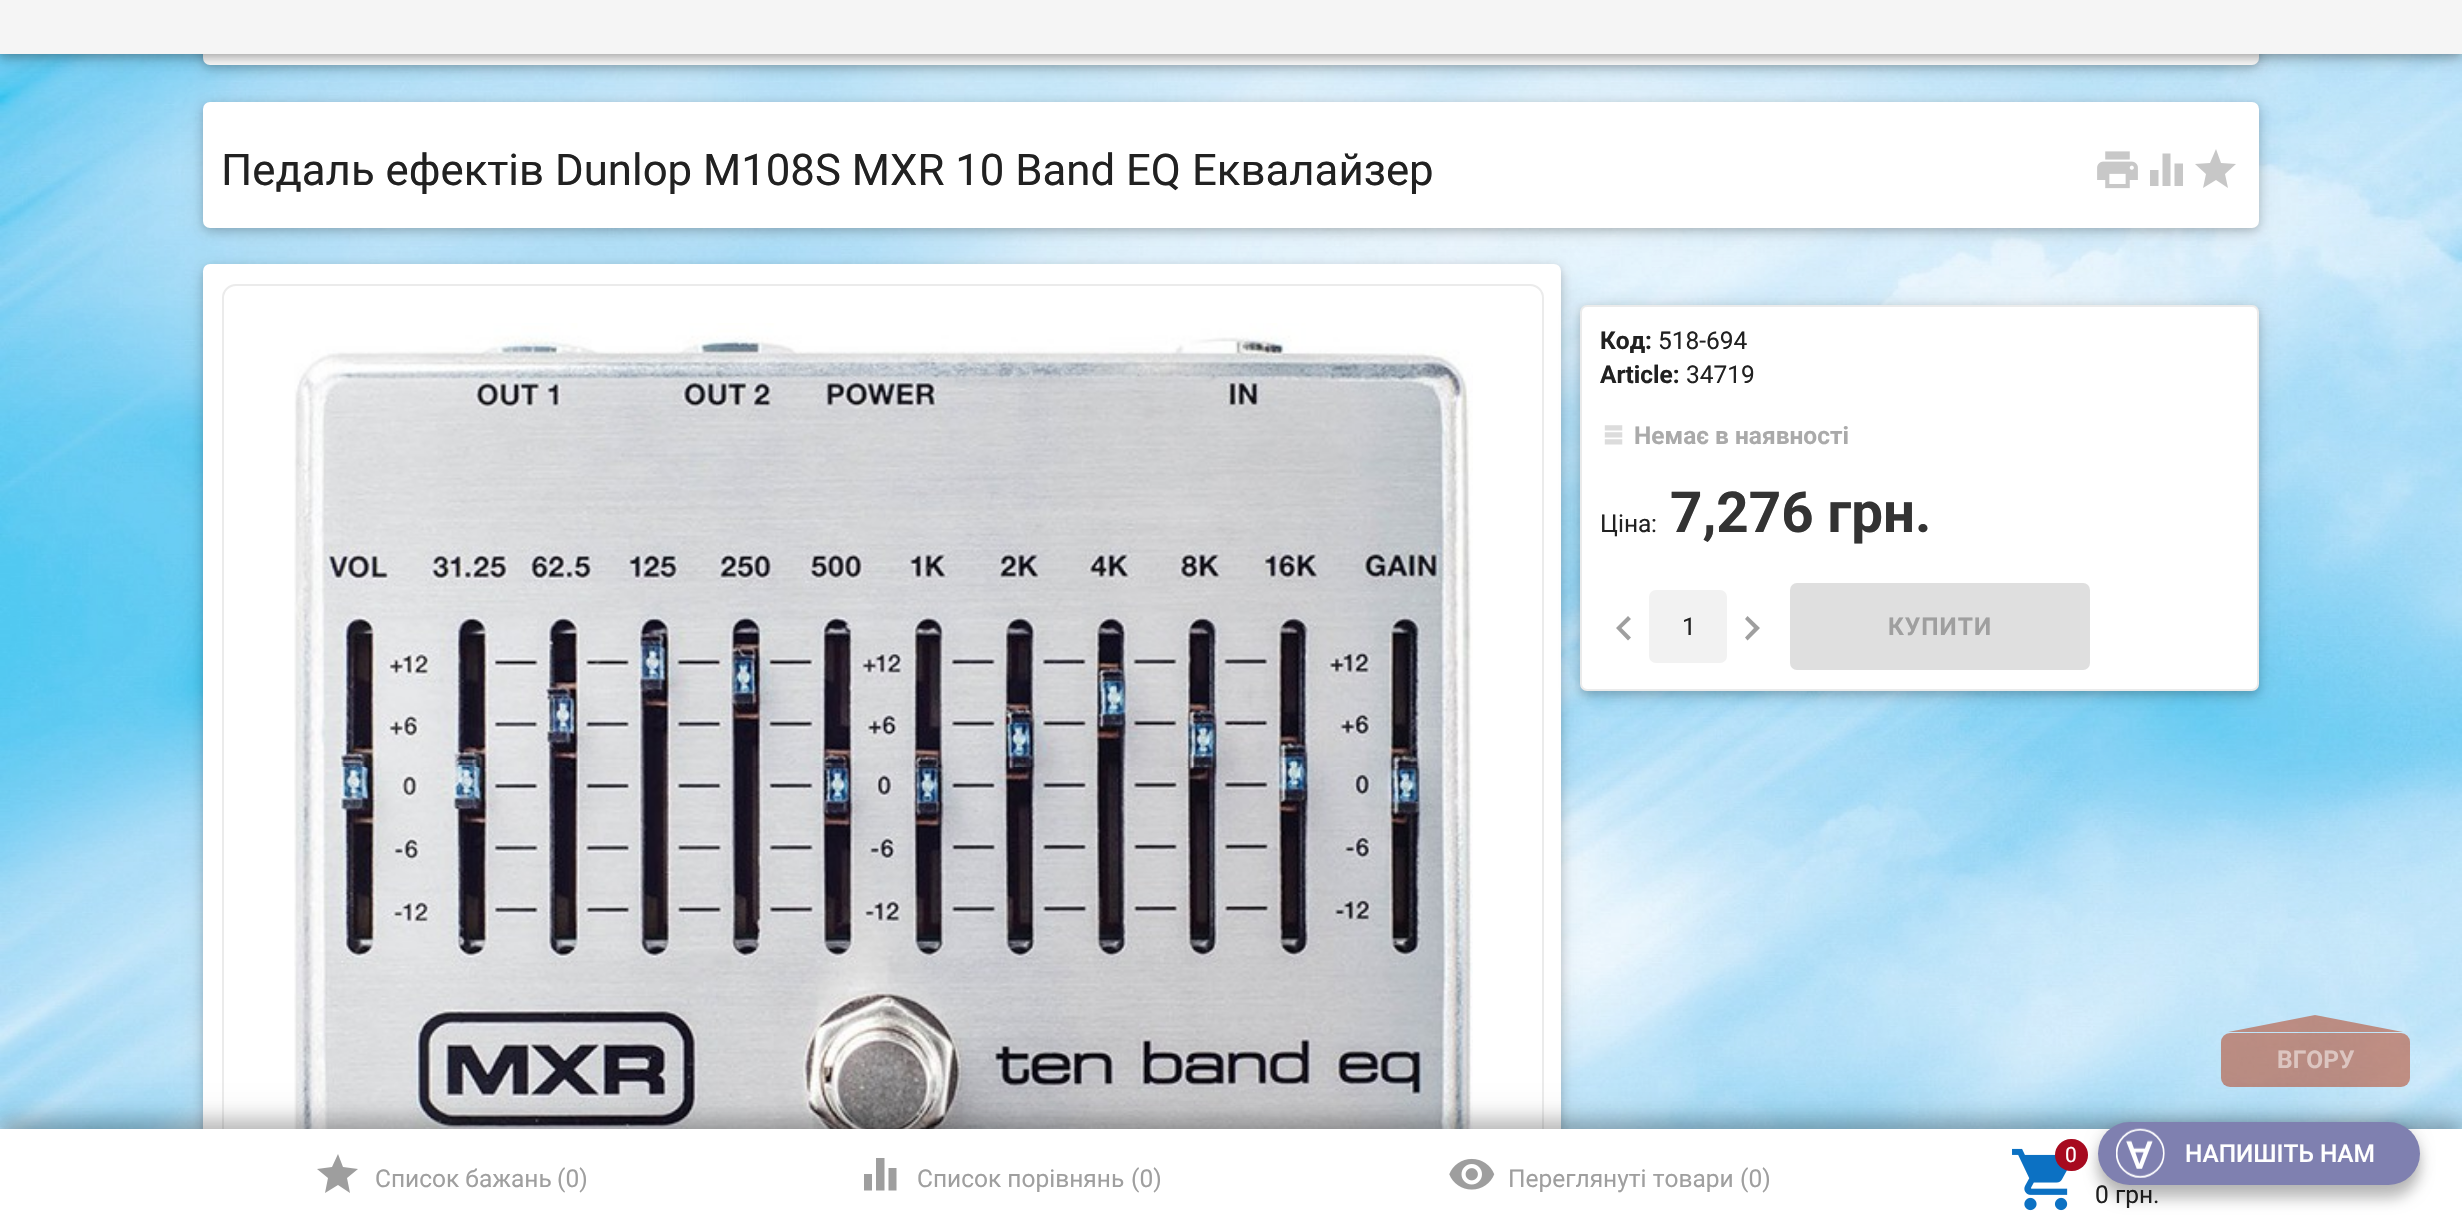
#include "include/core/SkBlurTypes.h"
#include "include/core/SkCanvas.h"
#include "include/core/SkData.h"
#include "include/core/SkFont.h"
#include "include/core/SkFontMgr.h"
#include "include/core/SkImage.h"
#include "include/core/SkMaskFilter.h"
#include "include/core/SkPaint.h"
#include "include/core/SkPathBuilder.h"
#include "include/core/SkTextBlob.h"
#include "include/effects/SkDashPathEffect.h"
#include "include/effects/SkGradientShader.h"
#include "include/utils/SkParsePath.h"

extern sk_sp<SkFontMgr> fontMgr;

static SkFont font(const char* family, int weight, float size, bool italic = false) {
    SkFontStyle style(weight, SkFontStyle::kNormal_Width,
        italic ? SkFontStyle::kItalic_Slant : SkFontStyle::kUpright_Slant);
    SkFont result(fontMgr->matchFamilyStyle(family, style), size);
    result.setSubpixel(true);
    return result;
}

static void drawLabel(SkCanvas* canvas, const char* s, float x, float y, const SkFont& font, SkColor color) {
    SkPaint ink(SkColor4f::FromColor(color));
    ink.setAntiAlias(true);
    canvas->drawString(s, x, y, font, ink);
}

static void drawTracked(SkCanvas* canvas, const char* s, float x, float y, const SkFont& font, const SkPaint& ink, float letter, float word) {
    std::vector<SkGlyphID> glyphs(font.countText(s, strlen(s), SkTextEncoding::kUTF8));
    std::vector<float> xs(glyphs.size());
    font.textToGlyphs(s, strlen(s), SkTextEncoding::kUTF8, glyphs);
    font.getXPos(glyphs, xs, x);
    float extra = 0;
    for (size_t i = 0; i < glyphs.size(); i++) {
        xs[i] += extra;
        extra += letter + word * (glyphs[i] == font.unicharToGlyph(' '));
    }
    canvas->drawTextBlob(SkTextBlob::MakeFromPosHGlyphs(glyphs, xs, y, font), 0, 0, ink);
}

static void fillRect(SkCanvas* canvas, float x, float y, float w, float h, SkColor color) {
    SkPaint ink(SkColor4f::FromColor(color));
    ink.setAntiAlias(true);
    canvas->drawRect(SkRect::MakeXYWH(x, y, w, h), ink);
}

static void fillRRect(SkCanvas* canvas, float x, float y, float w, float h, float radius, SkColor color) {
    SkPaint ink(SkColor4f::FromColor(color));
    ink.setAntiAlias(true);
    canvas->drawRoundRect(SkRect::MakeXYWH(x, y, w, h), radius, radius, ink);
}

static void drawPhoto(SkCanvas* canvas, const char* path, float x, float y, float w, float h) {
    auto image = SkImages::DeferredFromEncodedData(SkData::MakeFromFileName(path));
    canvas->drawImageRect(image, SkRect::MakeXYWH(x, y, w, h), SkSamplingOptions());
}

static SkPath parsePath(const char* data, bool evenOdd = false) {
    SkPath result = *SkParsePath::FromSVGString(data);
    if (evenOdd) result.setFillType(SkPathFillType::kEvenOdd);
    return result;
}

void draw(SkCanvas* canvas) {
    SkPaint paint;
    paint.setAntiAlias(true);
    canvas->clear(0xFFFFFFFF);
    drawPhoto(canvas, "assets/img1.png", 0, 54, 2462, 1075);
    paint.setColor(0x1F000000);
    paint.setMaskFilter(SkMaskFilter::MakeBlur(kNormal_SkBlurStyle, 9));
    canvas->drawRoundRect(SkRect::MakeXYWH(203, -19, 2056, 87), 7, 7, paint);
    paint.setMaskFilter(nullptr);
    paint.setColor(0x29000000);
    paint.setMaskFilter(SkMaskFilter::MakeBlur(kNormal_SkBlurStyle, 4.5f));
    canvas->drawRoundRect(SkRect::MakeXYWH(203, -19, 2056, 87), 7, 7, paint);
    paint.setMaskFilter(nullptr);
    fillRRect(canvas, 203, -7, 2056, 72, 7, 0xFFFFFFFF);
    paint.setColor(0x1F000000);
    paint.setMaskFilter(SkMaskFilter::MakeBlur(kNormal_SkBlurStyle, 9));
    canvas->drawRect(SkRect::MakeXYWH(0, -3, 2462, 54), paint);
    paint.setMaskFilter(nullptr);
    paint.setColor(0x29000000);
    paint.setMaskFilter(SkMaskFilter::MakeBlur(kNormal_SkBlurStyle, 4.5f));
    canvas->drawRect(SkRect::MakeXYWH(0, -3, 2462, 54), paint);
    paint.setMaskFilter(nullptr);
    paint.setColor(0x1F000000);
    paint.setMaskFilter(SkMaskFilter::MakeBlur(kNormal_SkBlurStyle, 9));
    canvas->drawRect(SkRect::MakeXYWH(0, 4, 2462, 54), paint);
    paint.setMaskFilter(nullptr);
    paint.setColor(0x29000000);
    paint.setMaskFilter(SkMaskFilter::MakeBlur(kNormal_SkBlurStyle, 4.5f));
    canvas->drawRect(SkRect::MakeXYWH(0, 4, 2462, 54), paint);
    paint.setMaskFilter(nullptr);
    fillRect(canvas, 0, 0, 2462, 54, 0xFFF5F5F5);
    paint.setColor(0x1F000000);
    paint.setMaskFilter(SkMaskFilter::MakeBlur(kNormal_SkBlurStyle, 9));
    canvas->drawRoundRect(SkRect::MakeXYWH(203, 105, 2056, 126), 7, 7, paint);
    paint.setMaskFilter(nullptr);
    paint.setColor(0x29000000);
    paint.setMaskFilter(SkMaskFilter::MakeBlur(kNormal_SkBlurStyle, 4.5f));
    canvas->drawRoundRect(SkRect::MakeXYWH(203, 105, 2056, 126), 7, 7, paint);
    paint.setMaskFilter(nullptr);
    fillRRect(canvas, 203, 102, 2056, 126, 7, 0xFFFFFFFF);
    SkFont font1 = font("Roboto", 400, 43.75f);
    drawLabel(canvas, "Педаль ефектів", 221, 185, font1, 0xFF212121);
    SkFont font2 = font("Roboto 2", 400, 43.75f);
    drawLabel(canvas, "Dunlop M108S MXR 10 Band EQ", 555, 185, font2, 0xFF212121);
    drawLabel(canvas, "Еквалайзер", 1192, 185, font1, 0xFF212121);
    drawPhoto(canvas, "assets/img2.png", 2097, 151, 41, 38);
    paint.setColor(0xFFC7C7C7);
    canvas->drawPath(parsePath("M2174.5 163.5H2183V186H2174.5ZM2150 186V170H2158.5V186ZM2162.5 186V153.5H2170.5V186Z"), paint);
    canvas->drawPath(parsePath("M2216 180L2203 188L2206 174L2195 164L2210 163L2216 149L2221 163L2236 164L2225 174L2228 188Z"), paint);
    paint.setColor(0x1F000000);
    paint.setMaskFilter(SkMaskFilter::MakeBlur(kNormal_SkBlurStyle, 9));
    canvas->drawRoundRect(SkRect::MakeXYWH(203, 268, 1358, 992), 7, 7, paint);
    paint.setMaskFilter(nullptr);
    paint.setColor(0x29000000);
    paint.setMaskFilter(SkMaskFilter::MakeBlur(kNormal_SkBlurStyle, 4.5f));
    canvas->drawRoundRect(SkRect::MakeXYWH(203, 268, 1358, 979), 7, 7, paint);
    paint.setMaskFilter(nullptr);
    fillRRect(canvas, 203, 264, 1358, 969, 7, 0xFFFFFFFF);
    paint.setStroke(true);
    paint.setStrokeWidth(2);
    paint.setColor(0xFFEBEBEB);
    canvas->drawRoundRect(SkRect::MakeXYWH(223, 285, 1320, 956), 13, 13, paint);
    drawPhoto(canvas, "assets/img3.png", 294, 323, 1179, 806);
    paint.setStroke(false);
    paint.setColor(0x1F000000);
    paint.setMaskFilter(SkMaskFilter::MakeBlur(kNormal_SkBlurStyle, 9));
    canvas->drawRoundRect(SkRect::MakeXYWH(1580, 308, 679, 387), 7, 7, paint);
    paint.setMaskFilter(nullptr);
    paint.setColor(0x29000000);
    paint.setMaskFilter(SkMaskFilter::MakeBlur(kNormal_SkBlurStyle, 4.5f));
    canvas->drawRoundRect(SkRect::MakeXYWH(1580, 308, 679, 387), 7, 7, paint);
    paint.setMaskFilter(nullptr);
    paint.setColor(0xFFFFFFFF);
    canvas->drawRoundRect(SkRect::MakeXYWH(1581, 306, 677, 384), 6, 6, paint);
    paint.setStroke(true);
    paint.setColor(0xFFEBEBEB);
    canvas->drawRoundRect(SkRect::MakeXYWH(1581, 306, 677, 384), 6, 6, paint);
    SkFont font3 = font("Roboto", 700, 24.5f);
    drawLabel(canvas, "Код:", 1600, 349, font3, 0xFF212121);
    SkFont font4 = font("Roboto 2", 400, 24.5f);
    drawLabel(canvas, "518-694", 1658, 349, font4, 0xFF212121);
    drawLabel(canvas, "Article:", 1600, 383, font3, 0xFF212121);
    drawLabel(canvas, "34719", 1686, 383, font4, 0xFF212121);
    drawPhoto(canvas, "assets/img4.png", 1604, 425, 19, 20);
    drawLabel(canvas, "Немає в наявності", 1634, 444, font3, 0xFFAAAAAA);
    SkFont font5 = font("Roboto", 400, 24.5f);
    drawLabel(canvas, "Ціна", 1600, 532, font5, 0xFF212121);
    drawLabel(canvas, ":", 1651, 532, font4, 0xFF212121);
    SkFont font6 = font("Roboto", 700, 56.5f);
    drawLabel(canvas, "7,276 грн.", 1670, 532, font6, 0xFF333333);
    paint.setStroke(false);
    paint.setColor(0xFF9F9F9F);
    canvas->drawPath(parsePath("M1631 619L1621.5 628L1631 637.5L1628 640.5L1616 628L1628 616Z"), paint);
    fillRRect(canvas, 1649, 590, 78, 73, 7, 0xFFF2F2F2);
    drawLabel(canvas, "1", 1682, 635, font4, 0xFF212121);
    canvas->drawPath(parsePath("M1747.5 616L1760 628L1747.5 640.5L1745 637.5L1754 628L1745 619Z"), paint);
    fillRRect(canvas, 1790, 583, 300, 87, 7, 0xFFDFDFDF);
    drawTracked(canvas, "КУПИТИ", 1888, 635, font3, paint, 1, 0);
    fillRRect(canvas, 2221, 1033, 189, 54, 9, 0x80B5340B);
    paint.setColor(0x80B5340B);
    canvas->drawPath(parsePath("M2403 1032H2228L2315 1015Z"), paint);
    drawLabel(canvas, "ВГОРУ", 2277, 1068, font3, 0xFFDCC5C0);
    paint.setColor(0x26000000);
    paint.setMaskFilter(SkMaskFilter::MakeBlur(kNormal_SkBlurStyle, 13));
    canvas->drawRect(SkRect::MakeXYWH(0, 1122, 2462, 98), paint);
    paint.setMaskFilter(nullptr);
    paint.setColor(0x2E000000);
    paint.setMaskFilter(SkMaskFilter::MakeBlur(kNormal_SkBlurStyle, 9.5f));
    canvas->drawRect(SkRect::MakeXYWH(0, 1120, 2462, 98), paint);
    paint.setMaskFilter(nullptr);
    fillRect(canvas, 0, 1129, 2462, 97, 0xFFFFFFFF);
    paint.setColor(0xFF9E9E9E);
    canvas->drawPath(parsePath("M338 1185L325 1193L328 1178L317 1169L332 1167L338 1154L343 1167L358 1169L347 1178L350 1193Z"), paint);
    drawLabel(canvas, "Список бажань", 375, 1187, font5, 0xFF9F9F9F);
    drawLabel(canvas, "(0)", 557, 1187, font4, 0xFF9F9F9F);
    canvas->drawPath(parsePath("M888.5 1168H896.5V1190.5H888.5ZM864 1190.5V1174H872V1190.5ZM876 1190.5V1158H884.5V1190.5Z"), paint);
    drawLabel(canvas, "Список порівнянь", 917, 1187, font5, 0xFF9F9F9F);
    drawLabel(canvas, "(0)", 1131, 1187, font4, 0xFF9F9F9F);
    drawPhoto(canvas, "assets/img5.png", 1449, 1158, 46, 32);
    drawLabel(canvas, "Переглянуті товари", 1508, 1187, font5, 0xFF9F9F9F);
    drawLabel(canvas, "(0)", 1740, 1187, font4, 0xFF9F9F9F);
    drawPhoto(canvas, "assets/img6.png", 2012, 1148, 56, 63);
    fillRRect(canvas, 2055, 1139, 33, 32, 16, 0xFFA70A1F);
    SkFont font7 = font("Roboto 2", 400, 21);
    drawLabel(canvas, "0", 2065, 1162, font7, 0xFFFFFFFF);
    drawLabel(canvas, "0", 2095, 1203, font4, 0xFF212121);
    drawLabel(canvas, "грн", 2115, 1203, font5, 0xFF212121);
    drawLabel(canvas, ".", 2153, 1203, font4, 0xFF212121);
    paint.setColor(0x1F000000);
    paint.setMaskFilter(SkMaskFilter::MakeBlur(kNormal_SkBlurStyle, 7));
    canvas->drawRoundRect(SkRect::MakeXYWH(2098, 1122, 322, 63), 31.5f, 31.5f, paint);
    paint.setMaskFilter(nullptr);
    paint.setColor(0x3D000000);
    paint.setMaskFilter(SkMaskFilter::MakeBlur(kNormal_SkBlurStyle, 7));
    canvas->drawRoundRect(SkRect::MakeXYWH(2098, 1136, 322, 63), 31.5f, 31.5f, paint);
    paint.setMaskFilter(nullptr);
    fillRRect(canvas, 2098, 1122, 322, 63, 31.5f, 0xFF7F80B0);
    drawPhoto(canvas, "assets/img7.png", 2116, 1128, 49, 50);
    SkFont font8 = font("Roboto", 500, 24.5f);
    drawLabel(canvas, "НАПИШІТЬ НАМ", 2185, 1162, font8, 0xFFFFFFFF);
}
